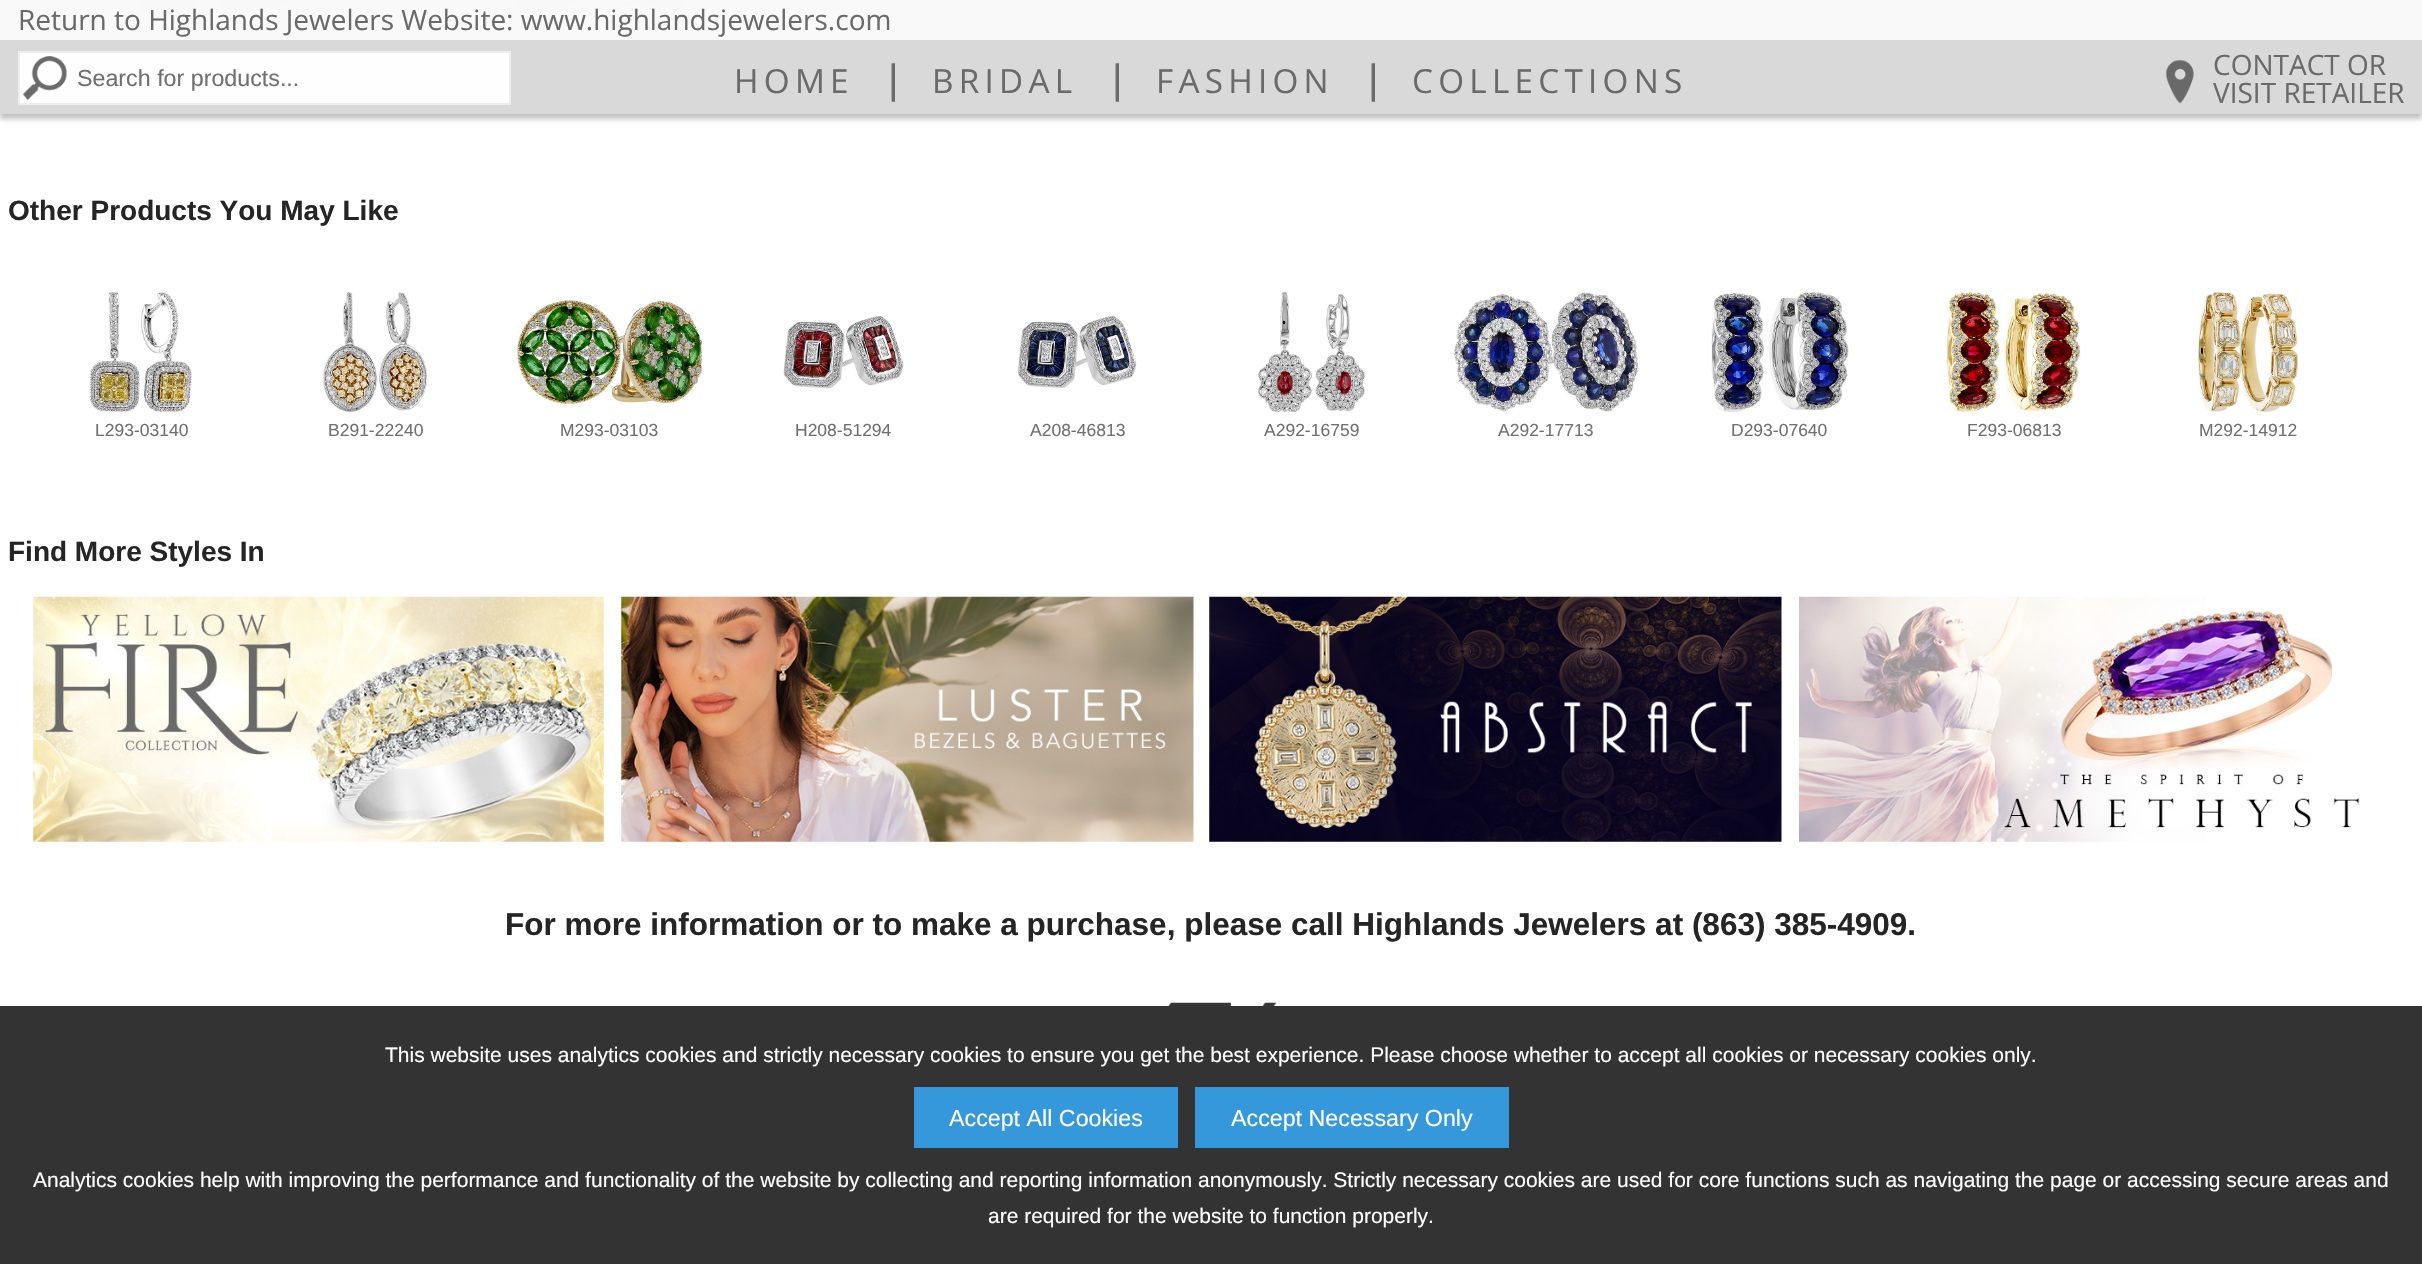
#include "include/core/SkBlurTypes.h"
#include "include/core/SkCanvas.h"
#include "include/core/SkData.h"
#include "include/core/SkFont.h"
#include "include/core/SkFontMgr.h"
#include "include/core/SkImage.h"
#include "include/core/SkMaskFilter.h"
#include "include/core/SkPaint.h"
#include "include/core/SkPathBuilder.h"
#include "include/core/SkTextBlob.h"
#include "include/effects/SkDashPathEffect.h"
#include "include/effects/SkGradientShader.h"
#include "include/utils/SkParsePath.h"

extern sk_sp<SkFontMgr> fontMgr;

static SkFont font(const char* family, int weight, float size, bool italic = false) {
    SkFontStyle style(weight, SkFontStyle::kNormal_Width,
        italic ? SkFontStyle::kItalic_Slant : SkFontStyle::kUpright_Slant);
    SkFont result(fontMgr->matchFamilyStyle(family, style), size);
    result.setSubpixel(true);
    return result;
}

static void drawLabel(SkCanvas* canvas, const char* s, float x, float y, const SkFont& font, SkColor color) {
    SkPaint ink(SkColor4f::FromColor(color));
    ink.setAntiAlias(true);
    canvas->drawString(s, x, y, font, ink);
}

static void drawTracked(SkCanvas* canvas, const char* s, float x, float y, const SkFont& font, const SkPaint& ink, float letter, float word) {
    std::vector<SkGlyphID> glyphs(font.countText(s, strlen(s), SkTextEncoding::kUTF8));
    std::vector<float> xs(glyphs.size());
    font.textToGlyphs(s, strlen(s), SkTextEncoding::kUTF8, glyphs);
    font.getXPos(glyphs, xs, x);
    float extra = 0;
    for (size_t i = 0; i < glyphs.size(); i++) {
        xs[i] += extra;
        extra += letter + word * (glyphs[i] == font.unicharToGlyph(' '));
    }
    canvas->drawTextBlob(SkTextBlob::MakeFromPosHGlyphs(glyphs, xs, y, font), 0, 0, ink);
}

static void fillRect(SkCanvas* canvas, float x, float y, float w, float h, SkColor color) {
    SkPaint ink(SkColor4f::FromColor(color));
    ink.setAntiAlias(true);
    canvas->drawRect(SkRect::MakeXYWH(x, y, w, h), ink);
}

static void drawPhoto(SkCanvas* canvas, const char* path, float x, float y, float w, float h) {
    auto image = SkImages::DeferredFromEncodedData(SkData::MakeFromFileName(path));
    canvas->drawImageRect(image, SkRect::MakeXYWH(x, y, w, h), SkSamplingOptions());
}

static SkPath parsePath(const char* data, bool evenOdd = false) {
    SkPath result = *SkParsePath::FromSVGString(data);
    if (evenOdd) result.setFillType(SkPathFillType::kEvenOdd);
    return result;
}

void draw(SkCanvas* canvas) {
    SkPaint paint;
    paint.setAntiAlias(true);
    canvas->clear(0xFFFFFFFF);
    drawPhoto(canvas, "assets/img3.png", 138, 0, 153, 15);
    drawPhoto(canvas, "assets/img4.png", 512, 0, 181, 15);
    canvas->save();
    canvas->clipPath(parsePath("M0 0H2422V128H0ZM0 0H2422V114H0Z", true), true);
    paint.setColor(0x6B6D6D6D);
    paint.setMaskFilter(SkMaskFilter::MakeBlur(kNormal_SkBlurStyle, 2.5f));
    canvas->drawRect(SkRect::MakeXYWH(0, 5, 2422, 114), paint);
    paint.setMaskFilter(nullptr);
    canvas->restore();
    fillRect(canvas, 0, 0, 2422, 114, 0xF2D7D7D7);
    fillRect(canvas, 0, 0, 2422, 40, 0xF2FAFAFA);
    SkFont font1 = font("Open Sans", 400, 28);
    drawLabel(canvas, "Return to Highlands Jewelers Website: www.highlandsjewelers.com", 18, 30, font1, 0xFF6A6A6A);
    paint.setColor(0xF2FFFFFF);
    canvas->drawRect(SkRect::MakeXYWH(19, 52, 491, 52), paint);
    paint.setStroke(true);
    paint.setStrokeWidth(2);
    paint.setColor(0xFFEDEDED);
    canvas->drawRect(SkRect::MakeXYWH(19, 52, 491, 52), paint);
    drawPhoto(canvas, "assets/img1.png", 22, 56, 45, 44);
    SkFont font2 = font("Liberation Sans", 400, 23.25f);
    drawLabel(canvas, "Search for products...", 77, 86, font2, 0xFF707070);
    SkFont font3 = font("Open Sans", 400, 33.25f);
    paint.setStroke(false);
    paint.setColor(0xFF6A6A6A);
    drawTracked(canvas, "HOME", 734, 93, font3, paint, 5.25f, 0);
    SkFont font4 = font("Liberation Sans", 400, 41);
    drawLabel(canvas, "|", 888, 93, font4, 0xFF6A6A6A);
    drawTracked(canvas, "BRIDAL", 932, 93, font3, paint, 5.25f, 0);
    drawLabel(canvas, "|", 1112, 93, font4, 0xFF6A6A6A);
    drawTracked(canvas, "FASHION", 1156, 93, font3, paint, 5.25f, 0);
    drawLabel(canvas, "|", 1368, 93, font4, 0xFF6A6A6A);
    drawTracked(canvas, "COLLECTIONS", 1412, 93, font3, paint, 5.25f, 0);
    drawPhoto(canvas, "assets/img2.png", 2165, 59, 29, 45);
    drawLabel(canvas, "CONTACT OR", 2213, 75, font1, 0xFF6A6A6A);
    drawLabel(canvas, "VISIT RETAILER", 2213, 103, font1, 0xFF6A6A6A);
    SkFont font5 = font("Liberation Sans", 700, 28);
    drawLabel(canvas, "Other Products You May Like", 8, 220, font5, 0xFF252525);
    drawPhoto(canvas, "assets/img5.png", 89, 291, 103, 122);
    SkFont font6 = font("Liberation Sans", 400, 17.5f);
    drawLabel(canvas, "L293-03140", 95, 436, font6, 0xFF707070);
    drawPhoto(canvas, "assets/img6.png", 322, 292, 106, 121);
    drawLabel(canvas, "B291-22240", 328, 436, font6, 0xFF707070);
    drawPhoto(canvas, "assets/img7.png", 516, 299, 187, 106);
    drawLabel(canvas, "M293-03103", 560, 436, font6, 0xFF707070);
    drawPhoto(canvas, "assets/img8.png", 783, 316, 121, 73);
    drawLabel(canvas, "H208-51294", 795, 436, font6, 0xFF707070);
    drawPhoto(canvas, "assets/img9.png", 1018, 315, 119, 74);
    drawLabel(canvas, "A208-46813", 1030, 436, font6, 0xFF707070);
    drawPhoto(canvas, "assets/img10.png", 1257, 292, 108, 121);
    drawLabel(canvas, "A292-16759", 1264, 436, font6, 0xFF707070);
    drawPhoto(canvas, "assets/img11.png", 1453, 292, 186, 120);
    drawLabel(canvas, "A292-17713", 1498, 436, font6, 0xFF707070);
    drawPhoto(canvas, "assets/img12.png", 1711, 292, 138, 120);
    drawLabel(canvas, "D293-07640", 1731, 436, font6, 0xFF707070);
    drawPhoto(canvas, "assets/img13.png", 1946, 291, 135, 122);
    drawLabel(canvas, "F293-06813", 1967, 436, font6, 0xFF707070);
    drawPhoto(canvas, "assets/img14.png", 2197, 292, 102, 121);
    drawLabel(canvas, "M292-14912", 2199, 436, font6, 0xFF707070);
    drawLabel(canvas, "Find More Styles In", 8, 561, font5, 0xFF252525);
    drawPhoto(canvas, "assets/img15.png", 33, 596, 571, 246);
    drawPhoto(canvas, "assets/img16.png", 621, 596, 573, 246);
    drawPhoto(canvas, "assets/img17.png", 1209, 596, 573, 246);
    drawPhoto(canvas, "assets/img18.png", 1799, 596, 561, 246);
    SkFont font7 = font("Liberation Sans", 700, 31.5f);
    drawLabel(canvas, "For more information or to make a purchase, please call Highlands Jewelers at (863) 385-4909.", 505, 935, font7, 0xFF252525);
    drawPhoto(canvas, "assets/img19.png", 1168, 1002, 109, 4);
    fillRect(canvas, 0, 1006, 2422, 258, 0xFF333333);
    SkFont font8 = font("Liberation Sans", 400, 21);
    drawLabel(canvas, "This website uses analytics cookies and strictly necessary cookies to ensure you get the best experience. Please choose whether to accept all cookies or necessary cookies only.", 385, 1062, font8, 0xFFFFFFFF);
    fillRect(canvas, 914, 1087, 264, 61, 0xFF3498DB);
    drawLabel(canvas, "Accept All Cookies", 949, 1126, font2, 0xFFFFFFFF);
    fillRect(canvas, 1195, 1087, 314, 61, 0xFF3498DB);
    drawLabel(canvas, "Accept Necessary Only", 1231, 1126, font2, 0xFFFFFFFF);
    drawLabel(canvas, "Analytics cookies help with improving the performance and functionality of the website by collecting and reporting information anonymously. Strictly necessary cookies are used for core functions such as navigating the page or accessing secure areas and", 33, 1187, font8, 0xFFFFFFFF);
    drawLabel(canvas, "are required for the website to function properly.", 988, 1223, font8, 0xFFFFFFFF);
}
